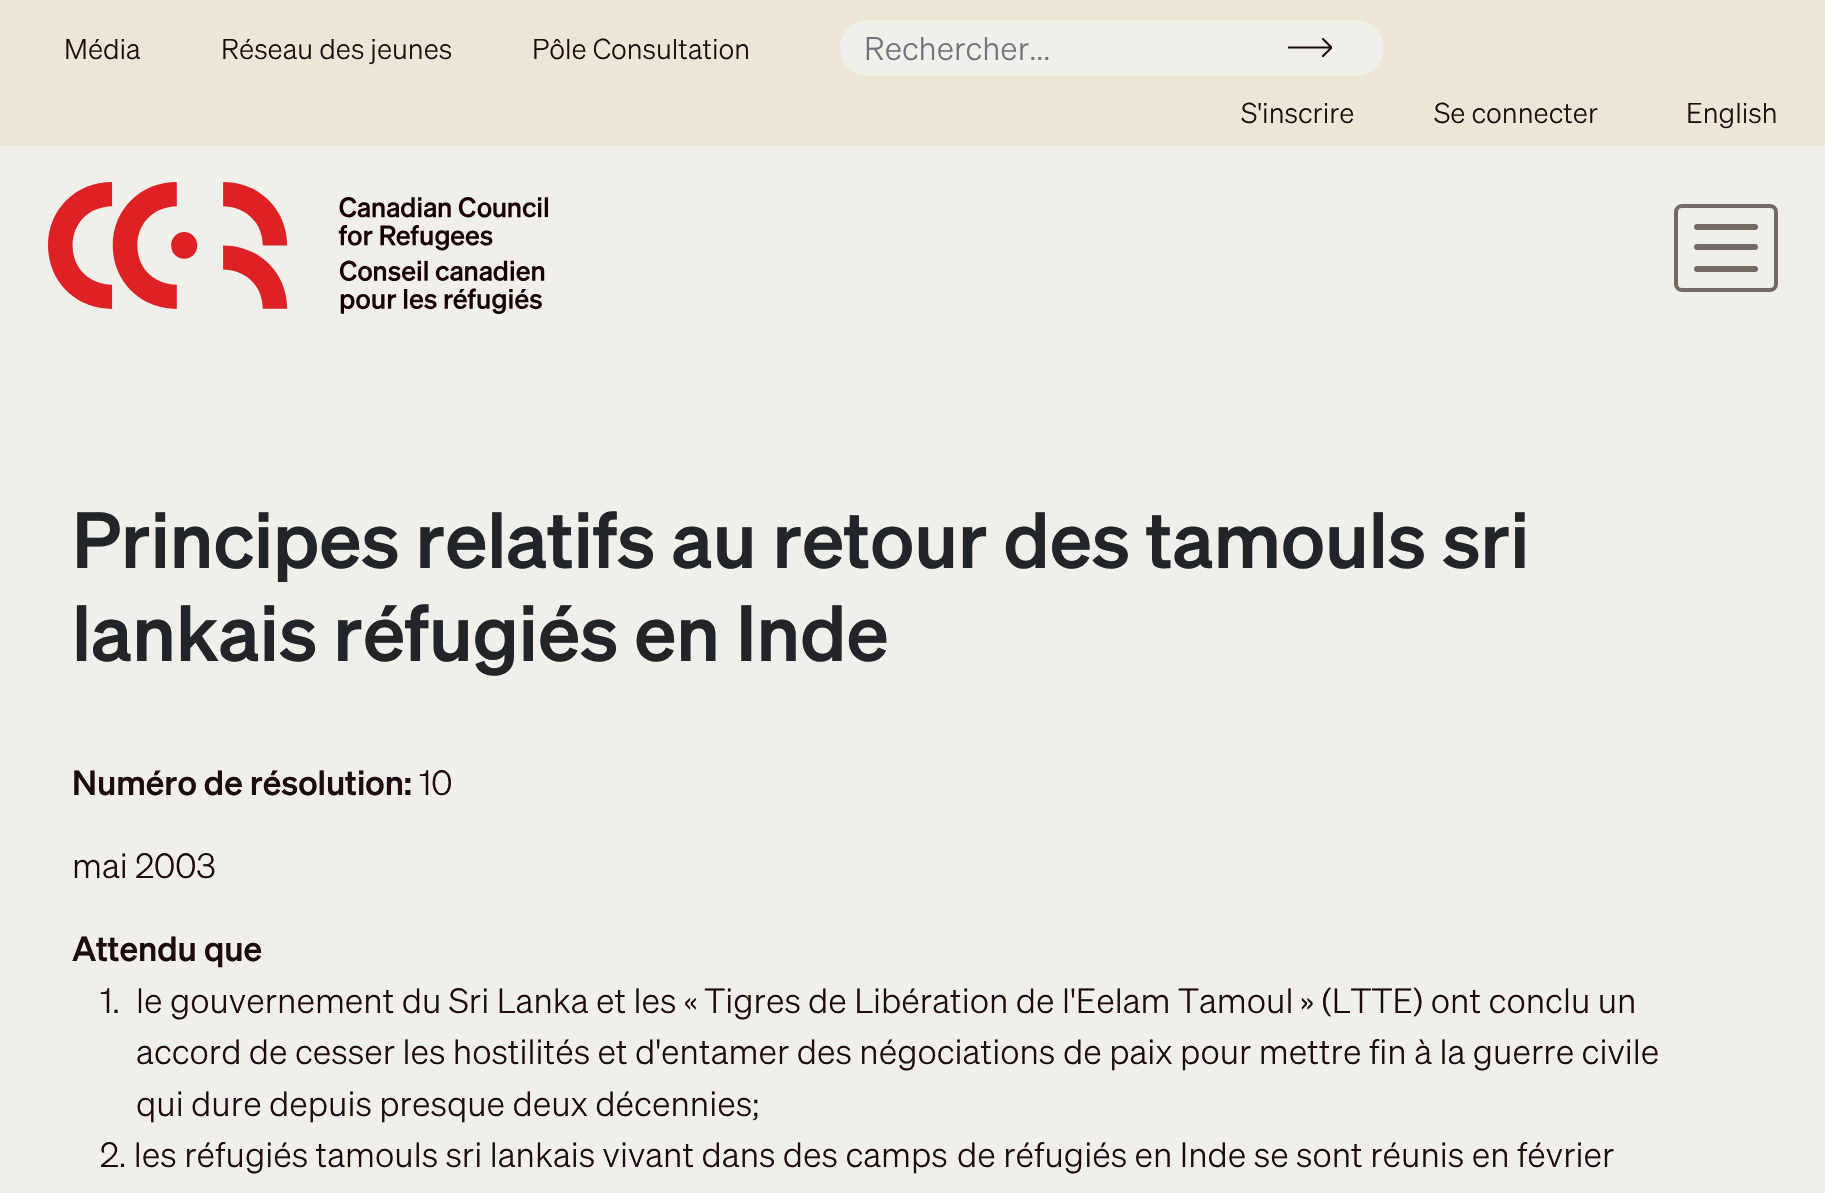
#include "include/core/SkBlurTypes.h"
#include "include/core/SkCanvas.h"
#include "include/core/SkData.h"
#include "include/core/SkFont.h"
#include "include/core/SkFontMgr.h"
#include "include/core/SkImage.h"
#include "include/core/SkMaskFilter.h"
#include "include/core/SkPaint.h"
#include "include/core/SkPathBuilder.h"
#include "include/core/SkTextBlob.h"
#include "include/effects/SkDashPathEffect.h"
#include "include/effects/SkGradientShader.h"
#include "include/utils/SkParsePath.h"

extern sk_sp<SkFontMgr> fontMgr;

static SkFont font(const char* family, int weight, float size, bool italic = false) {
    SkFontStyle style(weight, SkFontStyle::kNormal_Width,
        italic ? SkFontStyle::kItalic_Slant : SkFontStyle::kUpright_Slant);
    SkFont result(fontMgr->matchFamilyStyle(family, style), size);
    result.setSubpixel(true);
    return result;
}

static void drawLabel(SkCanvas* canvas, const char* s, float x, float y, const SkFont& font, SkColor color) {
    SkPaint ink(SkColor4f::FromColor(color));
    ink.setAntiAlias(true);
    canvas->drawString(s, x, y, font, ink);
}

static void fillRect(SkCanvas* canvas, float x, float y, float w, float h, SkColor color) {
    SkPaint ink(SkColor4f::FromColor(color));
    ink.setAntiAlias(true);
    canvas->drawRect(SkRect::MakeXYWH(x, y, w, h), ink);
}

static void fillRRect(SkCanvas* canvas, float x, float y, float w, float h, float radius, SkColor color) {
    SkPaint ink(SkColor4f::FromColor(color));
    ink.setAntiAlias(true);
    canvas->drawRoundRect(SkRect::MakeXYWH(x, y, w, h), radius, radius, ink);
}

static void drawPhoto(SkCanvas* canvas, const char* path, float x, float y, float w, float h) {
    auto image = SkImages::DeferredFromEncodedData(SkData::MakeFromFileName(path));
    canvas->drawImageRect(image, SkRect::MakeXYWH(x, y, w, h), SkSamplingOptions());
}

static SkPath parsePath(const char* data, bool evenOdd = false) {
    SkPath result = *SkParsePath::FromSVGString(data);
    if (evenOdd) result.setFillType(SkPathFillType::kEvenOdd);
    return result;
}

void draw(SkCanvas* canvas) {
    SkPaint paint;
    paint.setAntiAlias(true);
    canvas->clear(0xFFF1EFE9);
    fillRect(canvas, 0, 0, 1825, 146, 0xFFEBE6D6);
    SkFont font1 = font("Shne", 300, 28);
    drawLabel(canvas, "Média", 64, 59, font1, 0xFF1E0B0C);
    drawLabel(canvas, "Réseau des jeunes", 221, 59, font1, 0xFF1E0B0C);
    drawLabel(canvas, "Pôle Consultation", 532, 59, font1, 0xFF1E0B0C);
    fillRRect(canvas, 840, 20, 544, 56, 28, 0xFFF1EFE9);
    SkFont font2 = font("Shne", 300, 32);
    drawLabel(canvas, "Rechercher...", 864, 60, font2, 0xFF6C757D);
    paint.setStroke(true);
    paint.setStrokeWidth(2.2f);
    paint.setColor(0xFF1E0B0C);
    canvas->drawPath(parsePath("M1288 47.5H1331.5"), paint);
    canvas->save();
    canvas->clipRect(SkRect::MakeXYWH(1288, 38, 44, 20));
    paint.setStrokeCap(SkPaint::kRound_Cap);
    canvas->drawPath(parsePath("M1323 56L1331.5 47.5M1323 39L1331.5 47.5"), paint);
    canvas->restore();
    drawLabel(canvas, "S'inscrire", 1241, 123, font1, 0xFF1E0B0C);
    drawLabel(canvas, "Se connecter", 1434, 123, font1, 0xFF1E0B0C);
    drawLabel(canvas, "English", 1686, 123, font1, 0xFF1E0B0C);
    drawPhoto(canvas, "assets/img1.png", 48, 182, 500, 132);
    paint.setStrokeWidth(4);
    paint.setStrokeCap(SkPaint::kButt_Cap);
    paint.setColor(0xFF756966);
    canvas->drawRoundRect(SkRect::MakeXYWH(1676, 206, 100, 84), 6, 6, paint);
    fillRRect(canvas, 1694, 224, 64, 6, 3, 0xFF756966);
    fillRRect(canvas, 1694, 244, 64, 6, 3, 0xFF756966);
    fillRRect(canvas, 1694, 266, 64, 6, 3, 0xFF756966);
    SkFont font3 = font("Shne", 500, 77.7f);
    drawLabel(canvas, "Principes relatifs au retour des tamouls sri", 72, 568, font3, 0xFF212529);
    drawLabel(canvas, "lankais réfugiés en Inde", 72, 661, font3, 0xFF212529);
    SkFont font4 = font("Shne", 500, 34.25f);
    drawLabel(canvas, "Numéro de résolution:", 72, 795, font4, 0xFF1E0B0C);
    SkFont font5 = font("Shne", 300, 34.25f);
    drawLabel(canvas, "10", 419, 795, font5, 0xFF1E0B0C);
    drawLabel(canvas, "mai 2003", 72, 878, font5, 0xFF1E0B0C);
    drawLabel(canvas, "Attendu que", 72, 961, font4, 0xFF1E0B0C);
    drawLabel(canvas, "1.", 100, 1013, font5, 0xFF1E0B0C);
    drawLabel(canvas, "le gouvernement du Sri Lanka et les « Tigres", 136, 1013, font5, 0xFF1E0B0C);
    drawLabel(canvas, "de Libération de l'Eelam Tamoul » (LTTE) ont conclu un", 808, 1013, font5, 0xFF1E0B0C);
    drawLabel(canvas, "accord de cesser les hostilités et d'entamer des négociations", 136, 1064, font5, 0xFF1E0B0C);
    drawLabel(canvas, "de paix pour mettre fin à la guerre civile", 1063, 1064, font5, 0xFF1E0B0C);
    drawLabel(canvas, "qui dure depuis presque deux décennies;", 136, 1116, font5, 0xFF1E0B0C);
    drawLabel(canvas, "2. les réfugiés tamouls sri lankais vivant dans des camps", 100, 1167, font5, 0xFF1E0B0C);
    drawLabel(canvas, "de réfugiés en Inde se sont réunis en février", 957, 1167, font5, 0xFF1E0B0C);
}
